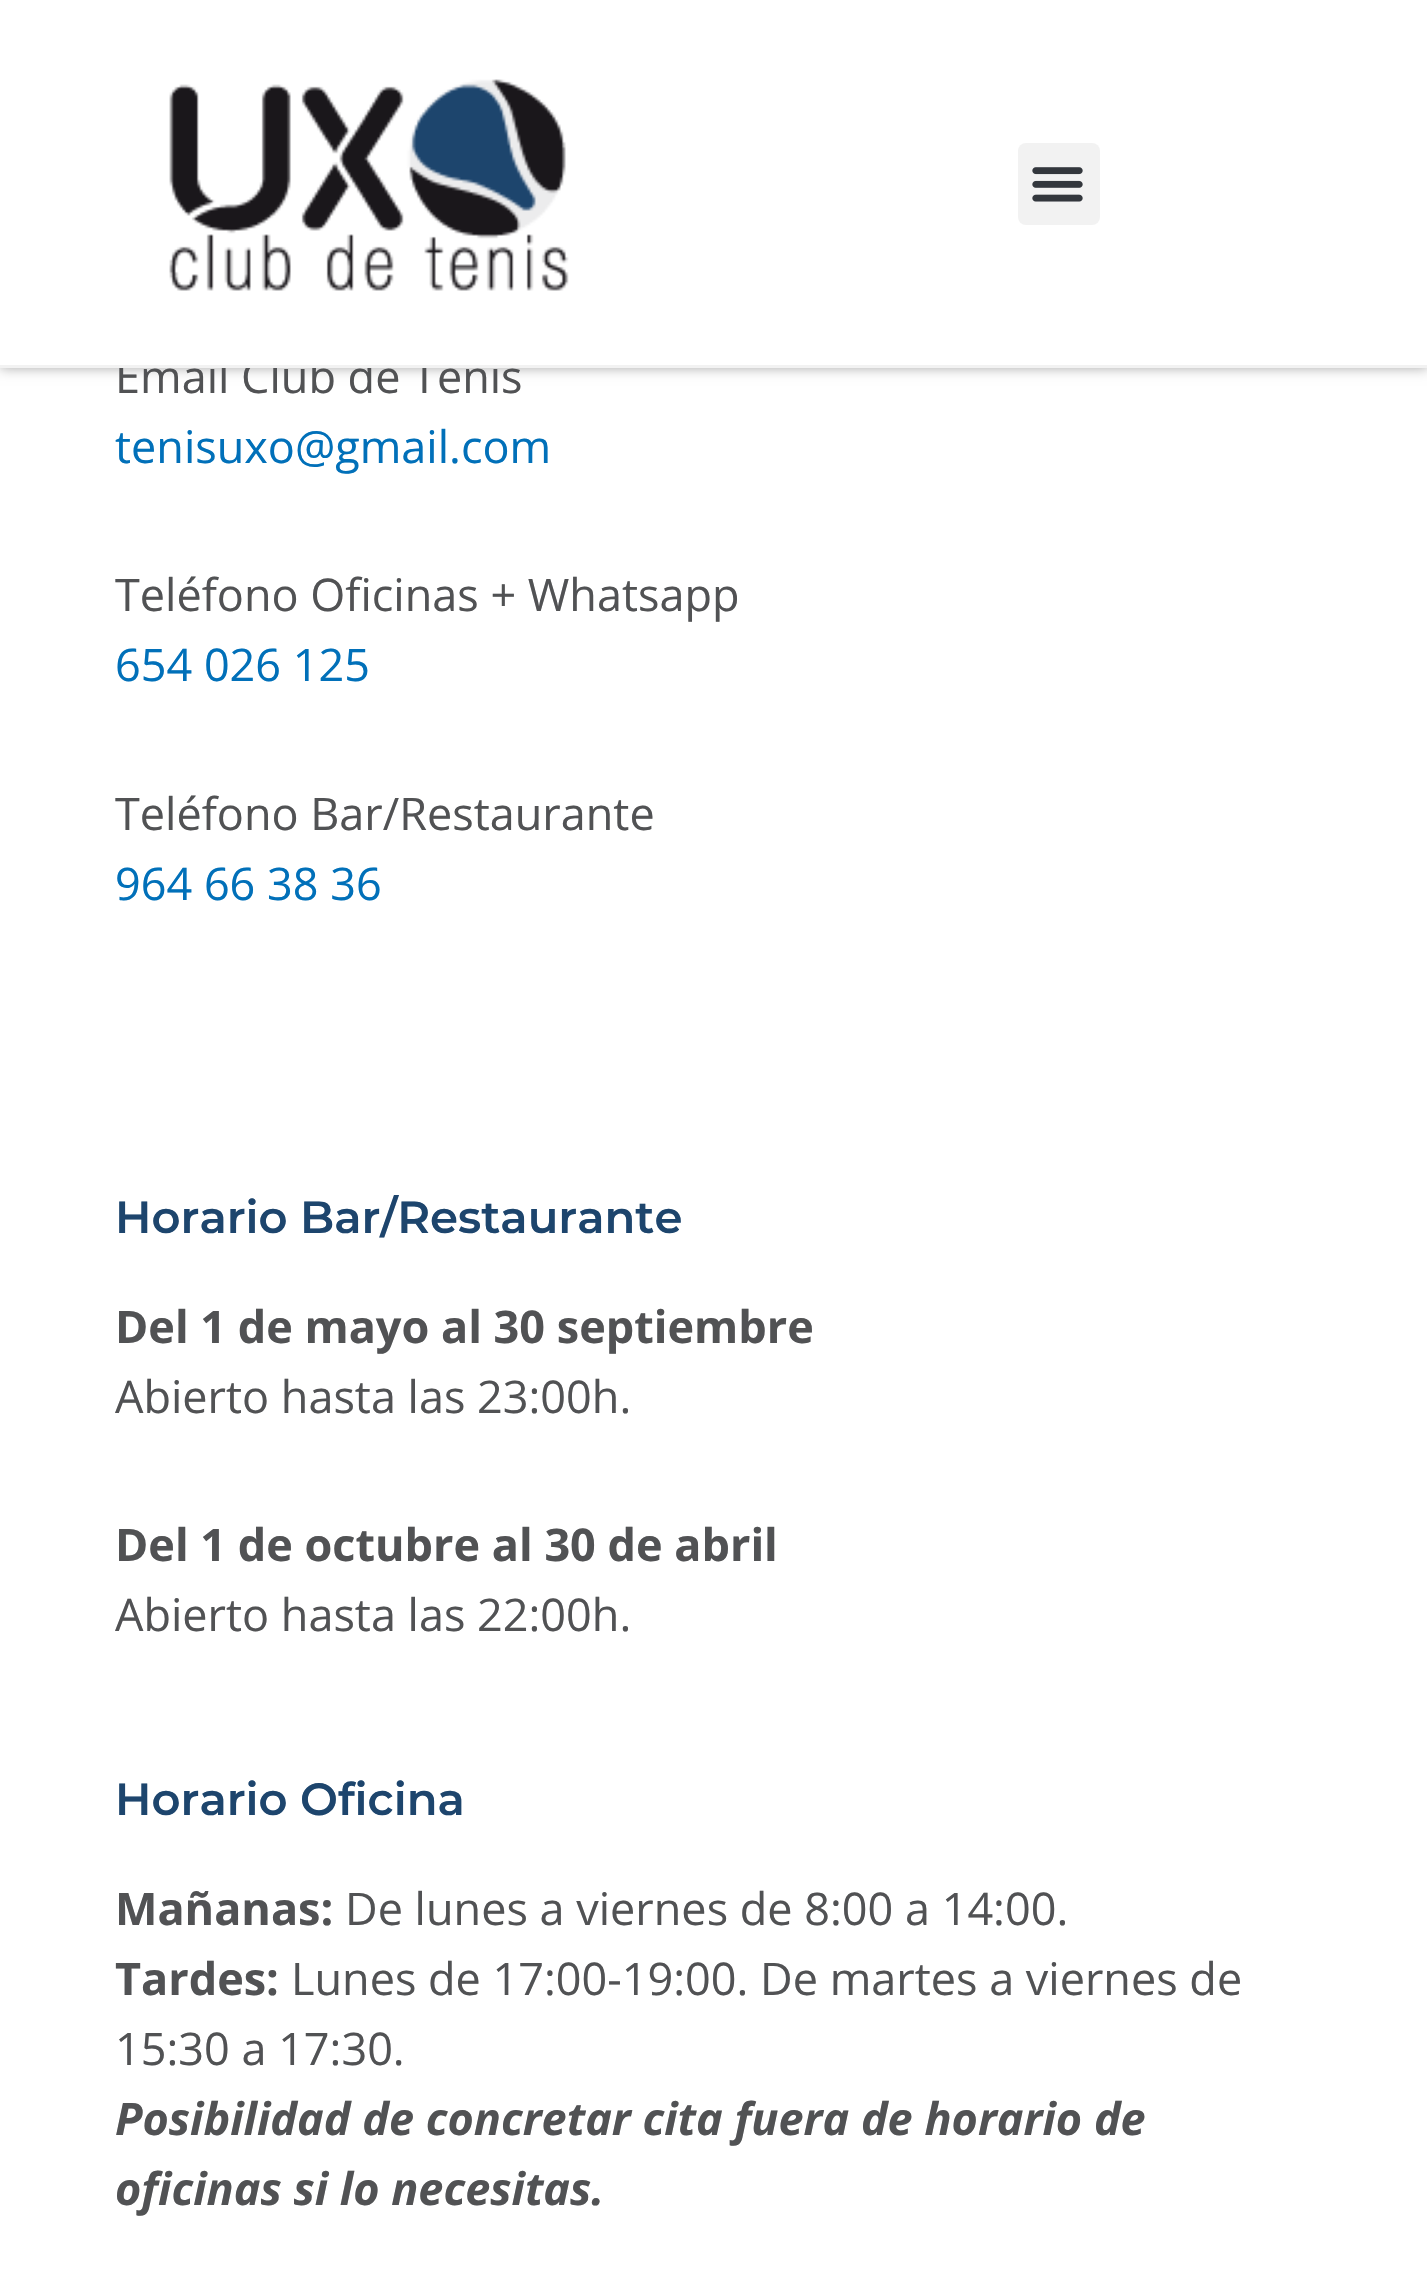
#include "include/core/SkBlurTypes.h"
#include "include/core/SkCanvas.h"
#include "include/core/SkData.h"
#include "include/core/SkFont.h"
#include "include/core/SkFontMgr.h"
#include "include/core/SkImage.h"
#include "include/core/SkMaskFilter.h"
#include "include/core/SkPaint.h"
#include "include/core/SkPathBuilder.h"
#include "include/core/SkTextBlob.h"
#include "include/effects/SkDashPathEffect.h"
#include "include/effects/SkGradientShader.h"
#include "include/utils/SkParsePath.h"

extern sk_sp<SkFontMgr> fontMgr;

static SkFont font(const char* family, int weight, float size, bool italic = false) {
    SkFontStyle style(weight, SkFontStyle::kNormal_Width,
        italic ? SkFontStyle::kItalic_Slant : SkFontStyle::kUpright_Slant);
    SkFont result(fontMgr->matchFamilyStyle(family, style), size);
    result.setSubpixel(true);
    return result;
}

static void drawLabel(SkCanvas* canvas, const char* s, float x, float y, const SkFont& font, SkColor color) {
    SkPaint ink(SkColor4f::FromColor(color));
    ink.setAntiAlias(true);
    canvas->drawString(s, x, y, font, ink);
}

static void fillRect(SkCanvas* canvas, float x, float y, float w, float h, SkColor color) {
    SkPaint ink(SkColor4f::FromColor(color));
    ink.setAntiAlias(true);
    canvas->drawRect(SkRect::MakeXYWH(x, y, w, h), ink);
}

static void fillRRect(SkCanvas* canvas, float x, float y, float w, float h, float radius, SkColor color) {
    SkPaint ink(SkColor4f::FromColor(color));
    ink.setAntiAlias(true);
    canvas->drawRoundRect(SkRect::MakeXYWH(x, y, w, h), radius, radius, ink);
}

static void drawPhoto(SkCanvas* canvas, const char* path, float x, float y, float w, float h) {
    auto image = SkImages::DeferredFromEncodedData(SkData::MakeFromFileName(path));
    canvas->drawImageRect(image, SkRect::MakeXYWH(x, y, w, h), SkSamplingOptions());
}

void draw(SkCanvas* canvas) {
    SkPaint paint;
    paint.setAntiAlias(true);
    canvas->clear(0xFFFFFFFF);
    paint.setColor(0x57000000);
    paint.setMaskFilter(SkMaskFilter::MakeBlur(kNormal_SkBlurStyle, 6));
    canvas->drawRect(SkRect::MakeXYWH(0, 0, 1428, 368), paint);
    paint.setMaskFilter(nullptr);
    SkFont font1 = font("Open Sans", 400, 45);
    drawLabel(canvas, "Email Club de Tenis", 115, 393, font1, 0xFF515254);
    fillRect(canvas, 0, 0, 1427, 365, 0xFFFFFFFF);
    fillRect(canvas, 0, 365, 1427, 3, 0xFFF2F2F2);
    drawPhoto(canvas, "assets/img1.png", 169, 79, 400, 212);
    fillRRect(canvas, 1018, 143, 82, 82, 8, 0xFFF2F2F2);
    drawPhoto(canvas, "assets/img2.png", 1032, 167, 51, 35);
    drawLabel(canvas, "tenisuxo@gmail.com", 115, 463, font1, 0xFF0170B9);
    drawLabel(canvas, "Teléfono Oficinas + Whatsapp", 115, 611, font1, 0xFF515254);
    drawLabel(canvas, "654 026 125", 115, 681, font1, 0xFF0170B9);
    drawLabel(canvas, "Teléfono Bar/Restaurante", 115, 830, font1, 0xFF515254);
    drawLabel(canvas, "964 66 38 36", 115, 900, font1, 0xFF0170B9);
    SkFont font2 = font("Montserrat", 600, 45);
    drawLabel(canvas, "Horario Bar/Restaurante", 115, 1233, font2, 0xFF1D456D);
    SkFont font3 = font("Open Sans", 700, 45);
    drawLabel(canvas, "Del 1 de mayo al 30 septiembre", 115, 1343, font3, 0xFF515254);
    drawLabel(canvas, "Abierto hasta las 23:00h.", 115, 1413, font1, 0xFF515254);
    drawLabel(canvas, "Del 1 de octubre al 30 de abril", 115, 1561, font3, 0xFF515254);
    drawLabel(canvas, "Abierto hasta las 22:00h.", 115, 1631, font1, 0xFF515254);
    drawLabel(canvas, "Horario Oficina", 115, 1815, font2, 0xFF1D456D);
    drawLabel(canvas, "Mañanas:", 115, 1925, font3, 0xFF515254);
    drawLabel(canvas, "De lunes a viernes de 8:00 a 14:00.", 345, 1925, font1, 0xFF515254);
    drawLabel(canvas, "Tardes:", 115, 1995, font3, 0xFF515254);
    drawLabel(canvas, "Lunes de 17:00-19:00. De martes a viernes de", 291, 1995, font1, 0xFF515254);
    drawLabel(canvas, "15:30 a 17:30.", 115, 2065, font1, 0xFF515254);
    SkFont font4 = font("Open Sans", 700, 45, true);
    drawLabel(canvas, "Posibilidad de concretar cita fuera de horario de", 115, 2135, font4, 0xFF515254);
    drawLabel(canvas, "oficinas si lo necesitas.", 115, 2205, font4, 0xFF515254);
}
